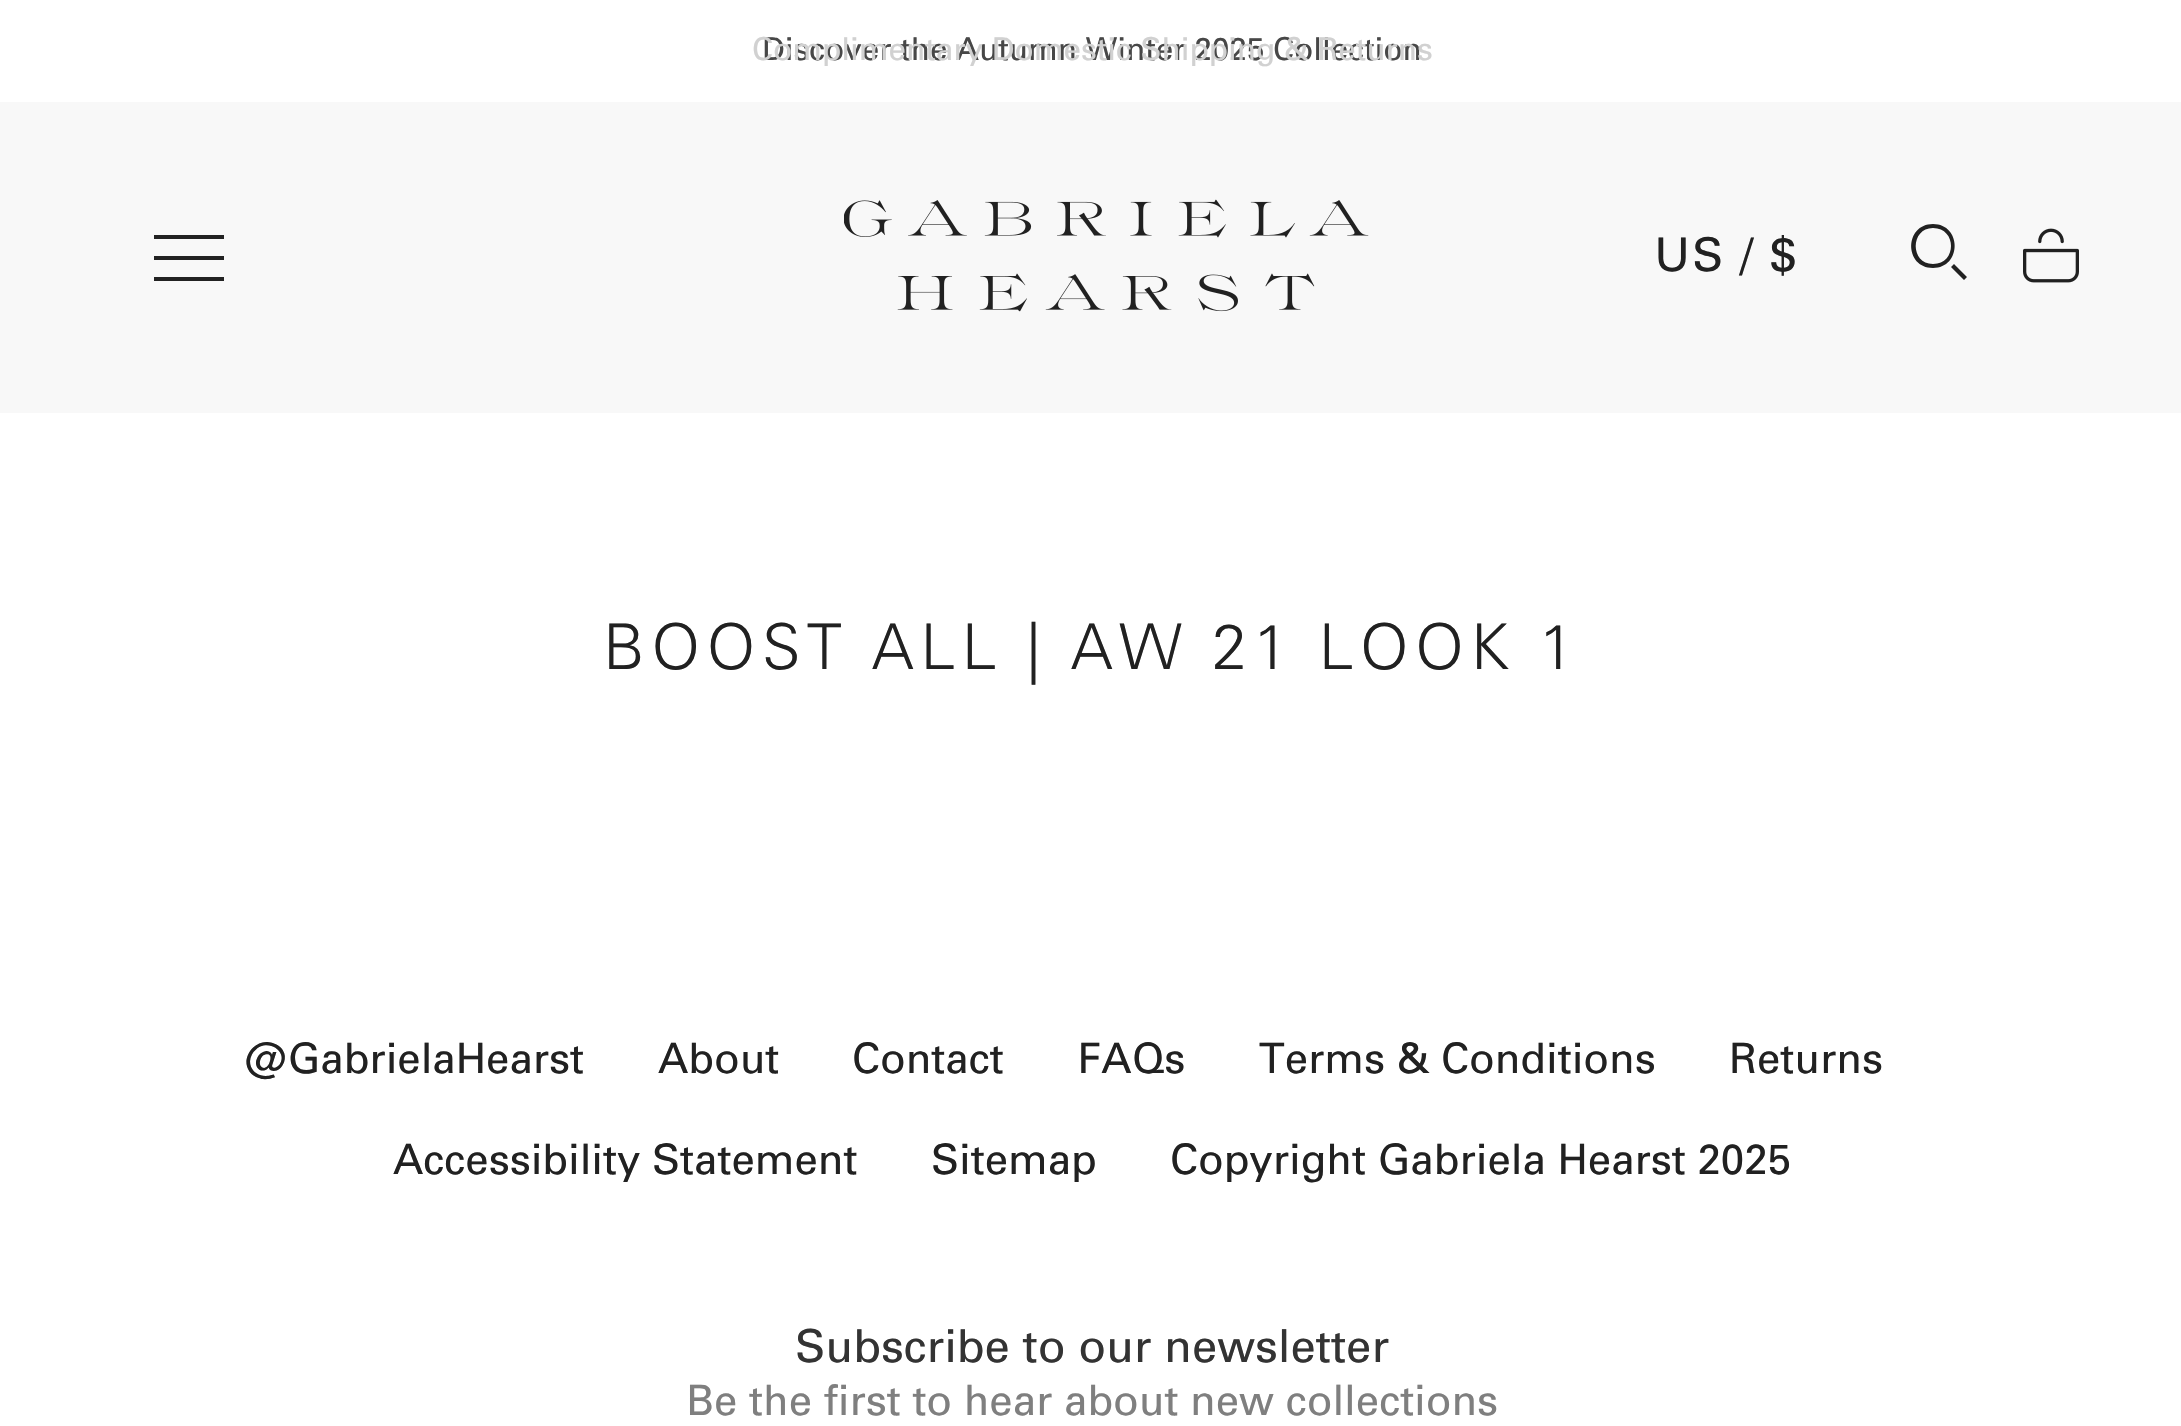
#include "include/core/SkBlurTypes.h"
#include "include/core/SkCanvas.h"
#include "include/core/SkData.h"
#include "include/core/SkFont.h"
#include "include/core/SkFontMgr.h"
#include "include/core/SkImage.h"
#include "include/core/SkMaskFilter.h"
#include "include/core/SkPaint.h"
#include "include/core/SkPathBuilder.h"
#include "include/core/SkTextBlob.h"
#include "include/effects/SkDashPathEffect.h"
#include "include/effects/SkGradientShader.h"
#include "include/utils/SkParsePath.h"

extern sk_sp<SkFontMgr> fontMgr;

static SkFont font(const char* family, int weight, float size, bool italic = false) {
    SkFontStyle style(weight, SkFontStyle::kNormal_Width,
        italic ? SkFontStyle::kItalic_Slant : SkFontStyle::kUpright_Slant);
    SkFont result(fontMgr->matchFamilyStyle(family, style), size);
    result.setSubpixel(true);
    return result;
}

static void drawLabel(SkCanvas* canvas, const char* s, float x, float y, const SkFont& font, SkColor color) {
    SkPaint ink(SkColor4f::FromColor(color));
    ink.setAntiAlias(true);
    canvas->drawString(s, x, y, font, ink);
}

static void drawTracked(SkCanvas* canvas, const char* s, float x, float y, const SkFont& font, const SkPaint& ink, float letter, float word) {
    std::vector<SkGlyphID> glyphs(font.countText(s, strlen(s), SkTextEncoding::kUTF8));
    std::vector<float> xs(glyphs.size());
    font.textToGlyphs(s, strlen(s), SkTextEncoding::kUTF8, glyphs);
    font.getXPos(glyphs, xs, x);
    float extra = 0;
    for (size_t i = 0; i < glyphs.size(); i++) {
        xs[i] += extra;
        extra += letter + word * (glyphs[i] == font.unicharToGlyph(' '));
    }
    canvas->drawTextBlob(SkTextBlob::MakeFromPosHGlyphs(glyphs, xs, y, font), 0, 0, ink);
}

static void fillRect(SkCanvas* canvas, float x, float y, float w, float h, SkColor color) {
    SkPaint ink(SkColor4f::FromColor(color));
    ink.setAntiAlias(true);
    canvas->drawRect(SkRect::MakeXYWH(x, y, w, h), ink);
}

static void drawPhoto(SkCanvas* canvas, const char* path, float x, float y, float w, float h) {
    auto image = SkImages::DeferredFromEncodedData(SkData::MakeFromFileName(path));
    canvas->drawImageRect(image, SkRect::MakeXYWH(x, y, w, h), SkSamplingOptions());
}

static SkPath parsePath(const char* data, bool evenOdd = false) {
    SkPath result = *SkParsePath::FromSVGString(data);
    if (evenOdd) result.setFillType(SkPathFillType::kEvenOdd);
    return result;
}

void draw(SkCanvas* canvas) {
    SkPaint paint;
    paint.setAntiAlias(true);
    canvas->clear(0xFFFFFFFF);
    SkFont font1 = font("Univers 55", 500, 31.5f);
    drawLabel(canvas, "Discover the Autumn Winter 2025 Collection", 762, 60, font1, 0xFF474747);
    drawLabel(canvas, "Complimentary Domestic Shipping & Returns", 752, 60, font1, 0xFFD1D1D1);
    fillRect(canvas, 0, 102, 2181, 311, 0xFFF8F8F8);
    fillRect(canvas, 154, 235, 70, 4, 0xFF222222);
    fillRect(canvas, 154, 256, 70, 4, 0xFF222222);
    fillRect(canvas, 154, 277, 70, 4, 0xFF222222);
    drawPhoto(canvas, "assets/img1.png", 844, 199, 525, 113);
    SkFont font2 = font("Univers 55", 500, 46.5f);
    paint.setColor(0xFF212121);
    drawTracked(canvas, "US / $", 1654, 271, font2, paint, 2, 0);
    canvas->drawPath(parsePath("M1964 280L1951 267L1954 264L1967 277ZM1933 268C1904 268 1904 224 1933 224C1962 224 1962 268 1933 268ZM1933 228C1910 228 1910 264 1933 264C1957 264 1957 228 1933 228Z"), paint);
    drawPhoto(canvas, "assets/img2.png", 2023, 228, 56, 55);
    SkFont font3 = font("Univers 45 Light", 300, 63);
    drawTracked(canvas, "BOOST ALL | AW 21 LOOK 1", 603, 669, font3, paint, 6.3f, 0);
    SkFont font4 = font("Univers 55", 500, 42);
    drawLabel(canvas, "@GabrielaHearst", 245, 1073, font4, 0xFF212121);
    drawLabel(canvas, "About", 658, 1073, font4, 0xFF212121);
    drawLabel(canvas, "Contact", 852, 1073, font4, 0xFF212121);
    drawLabel(canvas, "FAQs", 1078, 1073, font4, 0xFF212121);
    drawLabel(canvas, "Terms & Conditions", 1259, 1073, font4, 0xFF212121);
    drawLabel(canvas, "Returns", 1729, 1073, font4, 0xFF212121);
    drawLabel(canvas, "Accessibility Statement", 393, 1174, font4, 0xFF212121);
    drawLabel(canvas, "Sitemap", 931, 1174, font4, 0xFF212121);
    drawLabel(canvas, "Copyright Gabriela Hearst 2025", 1170, 1174, font4, 0xFF212121);
    SkFont font5 = font("Univers 55", 500, 45.5f);
    drawLabel(canvas, "Subscribe to our newsletter", 795, 1362, font5, 0xFF333333);
    drawLabel(canvas, "Be the first to hear about new collections", 686, 1415, font4, 0xFF7F7F7F);
}
